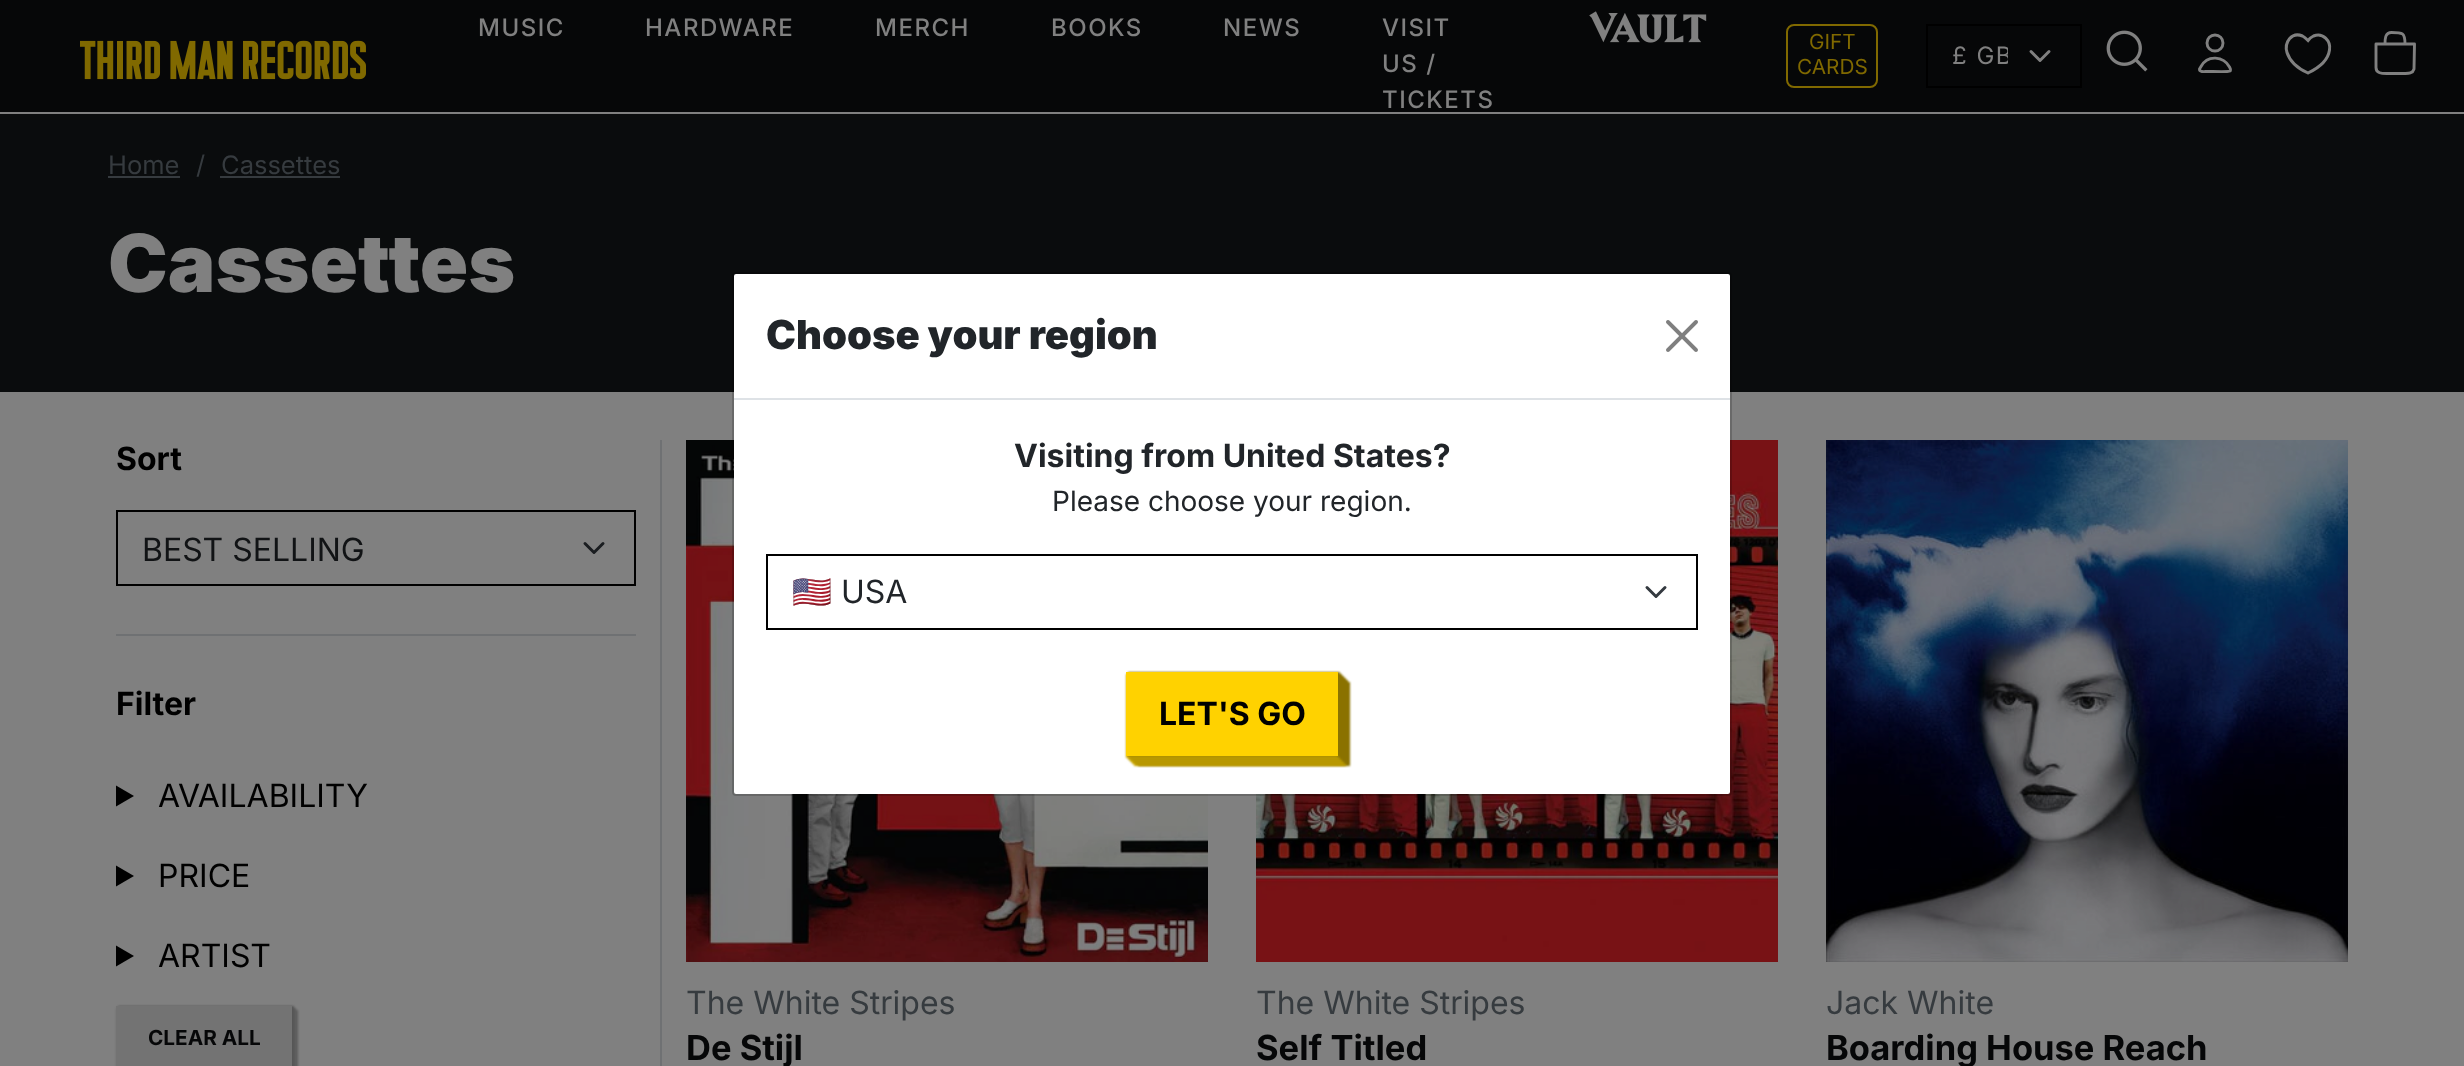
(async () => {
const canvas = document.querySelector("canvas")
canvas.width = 2464
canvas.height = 1066
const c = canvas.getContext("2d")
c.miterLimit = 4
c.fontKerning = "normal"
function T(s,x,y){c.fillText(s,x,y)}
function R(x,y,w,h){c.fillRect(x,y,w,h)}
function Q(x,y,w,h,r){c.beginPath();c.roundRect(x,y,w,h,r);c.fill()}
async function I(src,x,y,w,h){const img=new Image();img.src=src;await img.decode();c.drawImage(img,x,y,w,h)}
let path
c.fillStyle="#808080"
R(0,0,2464,1066)
c.fillStyle="#060708"
R(0,0,2464,112)
await I("1.png",80,40,286,40)
c.letterSpacing="1.5px"
c.font="500 24px Inter"
c.fillStyle="#808080"
T("MUSIC",478,36)
T("HARDWARE",645,36)
T("MERCH",875,36)
T("BOOKS",1051,36)
T("NEWS",1223,36)
T("VISIT",1382,36)
T("US /",1382,72)
T("TICKETS",1382,108)
await I("2.png",1589,11,118,32)
c.beginPath()
c.roundRect(1787,25,90,62,7)
c.strokeStyle="#806900"
c.lineWidth=2
c.stroke()
c.letterSpacing="0px"
c.font="20.75px Inter"
c.fillStyle="#806900"
T("GIFT",1809,49)
T("CARDS",1797,74)
path = new Path2D("M2031 51.5l9 9l9-9")
c.strokeStyle="#808080"
c.lineWidth=3
c.lineCap="round"
c.lineJoin="round"
c.stroke(path)
c.strokeStyle="#000"
c.lineWidth=2
c.lineJoin="miter"
c.strokeRect(1927,25,154,62)
c.save()
c.beginPath()
c.rect(1952,38,56,36)
c.clip()
c.letterSpacing="1.5px"
c.font="24px Inter"
c.fillStyle="#808080"
T("£ GB",1952,64)
c.restore()
await I("3.png",2106,30,42,42)
c.beginPath()
c.arc(2215,43,8,0,7)
c.strokeStyle="#808080"
c.lineWidth=2.9
c.stroke()
path = new Path2D("M2201 66.5l-1.5 2.5c-.5 3.5 6 2.5 6.5 2.5h4.5c2.5 0 18 .5 19.5-.5l.5-.5c.5-1-.5-2.5-1-3.5c-6-11-22-12.5-28.5-.5")
c.lineJoin="round"
c.stroke(path)
path = new Path2D("M2308 73c-9-4-18-11-21-20.5c-3-10 4.5-21 15.5-16.5c2 1 3.5 2.5 5.5 4.5c1.5-2 3.5-3.5 5.5-4.5c9.5-4 17.5 5 16 14c-1.5 11-12 18.5-21.5 23z")
c.lineWidth=3
c.lineCap="butt"
c.lineJoin="miter"
c.stroke(path)
path = new Path2D("M2376 44h38.5l-.5 25c-1.5 5-6 4.5-10 4.5h-17.5c-4.5 0-10.5 0-10.5-6zm15.5-11.5c11 0 13.5 0 13.5 11.5h-20c0-5 0-11.5 6.5-11.5")
c.lineWidth=2.9
c.lineCap="round"
c.lineJoin="round"
c.stroke(path)
c.fillStyle="#0a0c0d"
R(0,114,2464,278)
c.font="25.5px Inter"
c.fillStyle="#363b3f"
T("Home",108,174)
R(108,176,72,2)
T("/",196,174)
T("Cassettes",221,174)
R(220,176,120,2)
c.font="900 80px Inter"
c.fillStyle="#808080"
T("Cassettes",108,292)
c.fillStyle="#6f7173"
R(660,440,2,626)
R(116,634,520,2)
c.font="bold 32px Inter"
c.fillStyle="#000"
T("Sort",116,470)
path = new Path2D("M585 543.5l9 9l9-9")
c.strokeStyle="#1a1d20"
c.lineWidth=3
c.stroke(path)
c.strokeStyle="#000"
c.lineWidth=2
c.lineJoin="miter"
c.strokeRect(117,511,518,74)
c.font="32px Inter"
c.fillStyle="#111315"
T("BEST SELLING",142,561)
c.font="bold 32px Inter"
c.fillStyle="#000"
T("Filter",116,715)
path = new Path2D("M116 785.5l18 10.5l-18 10.5z")
c.fill(path)
c.font="32px Inter"
T("AVAILABILITY",158,807)
path = new Path2D("M116 865.5l18 10.5l-18 10.5z")
c.fill(path)
T("PRICE",158,887)
path = new Path2D("M116 945.5l18 10.5l-18 10.5z")
c.fill(path)
T("ARTIST",158,967)
c.fillStyle="#5e5e5e"
c.filter="blur(1px)"
c.beginPath()
c.rect(122,1010,176,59)
c.fill()
c.filter="none"
c.fillStyle="#777"
c.filter="blur(1px)"
c.beginPath()
c.rect(118,1010,176,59)
c.fill()
c.filter="none"
c.fillStyle="#5e5e5e"
c.filter="blur(1px)"
c.beginPath()
c.rect(120,1008,176,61)
c.fill()
c.filter="none"
c.fillStyle="#6f6f6f"
c.filter="blur(1px)"
c.beginPath()
c.rect(116,1008,176,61)
c.fill()
c.filter="none"
c.fillStyle="#555"
c.filter="blur(1px)"
c.beginPath()
c.rect(118,1006,176,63)
c.fill()
c.filter="none"
c.fillStyle="#737373"
R(116,1006,176,60)
c.font="bold 20.75px Inter"
c.fillStyle="#060708"
T("CLEAR ALL",148,1045)
await I("4.png",686,440,522,522)
c.font="32px Inter"
c.fillStyle="#363b3f"
T("The White Stripes",686,1014)
c.font="bold 34.5px Inter"
c.fillStyle="#060708"
T("De Stijl",686,1060)
await I("5.png",1256,440,522,522)
c.font="32px Inter"
c.fillStyle="#363b3f"
T("The White Stripes",1256,1014)
c.font="bold 34.5px Inter"
c.fillStyle="#060708"
T("Self Titled",1256,1060)
await I("6.png",1826,440,522,522)
c.font="32px Inter"
c.fillStyle="#363b3f"
T("Jack White",1826,1014)
c.font="bold 34.5px Inter"
c.fillStyle="#060708"
T("Boarding House Reach",1826,1060)
c.fillStyle="#fff"
Q(734,274,996,520,2)
c.beginPath()
c.roundRect(733,273,998,522,3)
c.strokeStyle="#0000002e"
c.stroke()
c.fillStyle="#dee2e6"
R(734,398,996,2)
c.font="900 40px Inter"
c.fillStyle="#212529"
T("Choose your region",766,349)
await I("7.png",1666,320,32,32)
c.font="bold 32px Inter"
T("Visiting from United States?",1014,467)
c.font="28px Inter"
T("Please choose your region.",1052,511)
path = new Path2D("M1647 587.5l9 9l9-9")
c.strokeStyle="#343a40"
c.lineWidth=3
c.lineJoin="round"
c.stroke(path)
c.strokeStyle="#000"
c.lineWidth=2
c.lineJoin="miter"
c.strokeRect(767,555,930,74)
c.font="32px Noto Color Emoji"
T("🇺🇸",792,603)
c.font="32px Inter"
T("USA",841,603)
c.fillStyle="#8a7100"
c.filter="blur(1px)"
c.beginPath()
c.rect(1138,682,212,84)
c.fill()
c.filter="none"
c.fillStyle="#c9a600"
c.filter="blur(1px)"
c.beginPath()
c.rect(1134,682,212,84)
c.fill()
c.filter="none"
c.fillStyle="#8a7100"
c.filter="blur(1px)"
c.beginPath()
c.rect(1136,680,212,84)
c.fill()
c.filter="none"
c.fillStyle="#c9a600"
c.filter="blur(1px)"
c.beginPath()
c.rect(1132,680,212,84)
c.fill()
c.filter="none"
c.fillStyle="#8a7100"
c.filter="blur(1px)"
c.beginPath()
c.rect(1134,678,212,84)
c.fill()
c.filter="none"
c.fillStyle="#c9a600"
c.filter="blur(1px)"
c.beginPath()
c.rect(1130,678,212,84)
c.fill()
c.filter="none"
c.fillStyle="#8a7100"
c.filter="blur(1px)"
c.beginPath()
c.rect(1132,676,212,84)
c.fill()
c.filter="none"
c.fillStyle="#c9a600"
c.filter="blur(1px)"
c.beginPath()
c.rect(1128,676,212,84)
c.fill()
c.filter="none"
c.fillStyle="#8a7100"
c.filter="blur(1px)"
c.beginPath()
c.rect(1130,674,212,84)
c.fill()
c.filter="none"
c.fillStyle="#c9a600"
c.filter="blur(1px)"
c.beginPath()
c.rect(1126,674,212,84)
c.fill()
c.filter="none"
c.fillStyle="#8a7100"
c.filter="blur(1px)"
c.beginPath()
c.rect(1128,672,212,84)
c.fill()
c.filter="none"
c.fillStyle="#ffd200"
R(1126,672,212,84)
c.font="bold 32px Inter"
c.fillStyle="#000"
T("LET'S GO",1159,725)
})()
